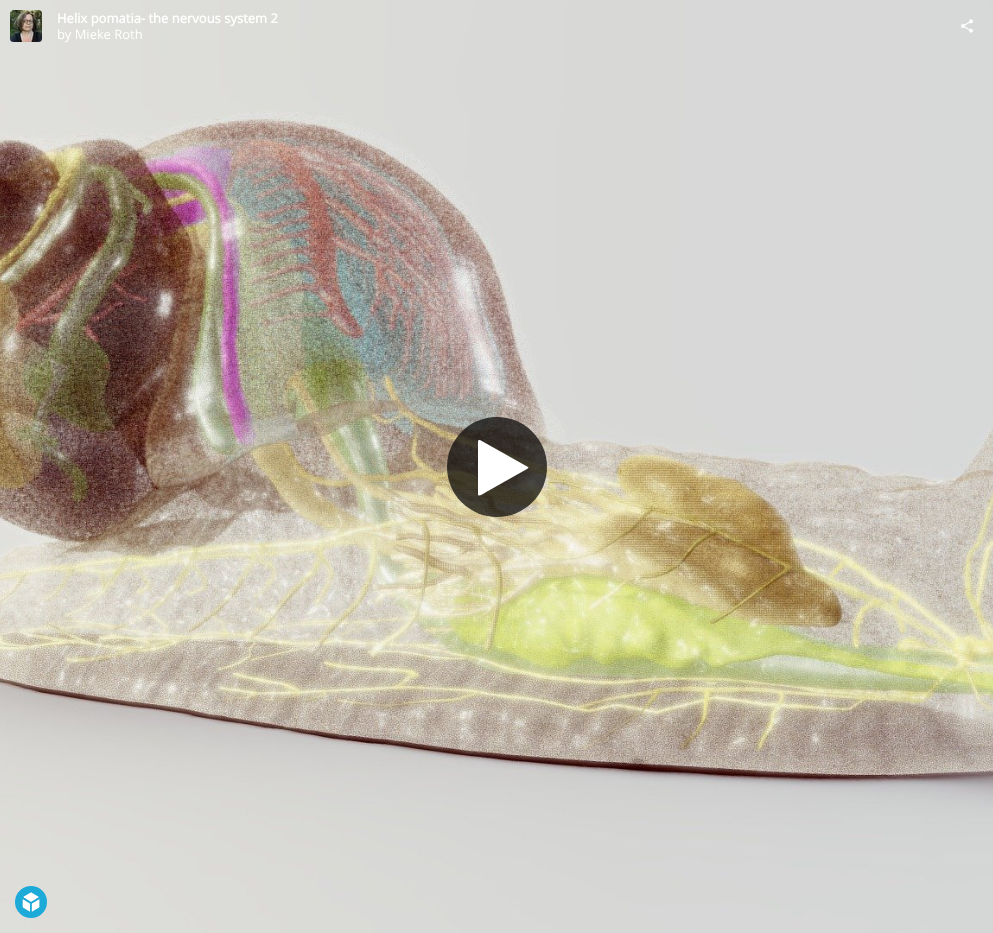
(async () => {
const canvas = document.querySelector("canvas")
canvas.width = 993
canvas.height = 933
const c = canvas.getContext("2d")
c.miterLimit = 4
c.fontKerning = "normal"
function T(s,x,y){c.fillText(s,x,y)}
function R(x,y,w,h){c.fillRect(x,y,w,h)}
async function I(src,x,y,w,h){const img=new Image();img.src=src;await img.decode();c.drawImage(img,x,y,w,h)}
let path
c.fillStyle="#fff"
R(0,0,993,933)
await I("1.png",0,0,993,933)
c.fillStyle="#000000b3"
c.beginPath()
c.arc(497,467,50,0,7)
c.fill()
c.fillStyle="#fff"
path = new Path2D("M527 469l-39 22c-1 0-8 6-10 4v-54c0-1 1-1 2-1l48 27c1 1 0 1-1 2z")
c.fill(path)
await I("2.png",15,886,32,32)
await I("3.png",10,10,32,32)
c.font="bold 13px Open Sans"
T("Helix pomatia- the nervous system 2",57,23)
c.font="13px Open Sans"
T("by Mieke Roth",57,39)
await I("4.png",961,19,12,14)
})()
